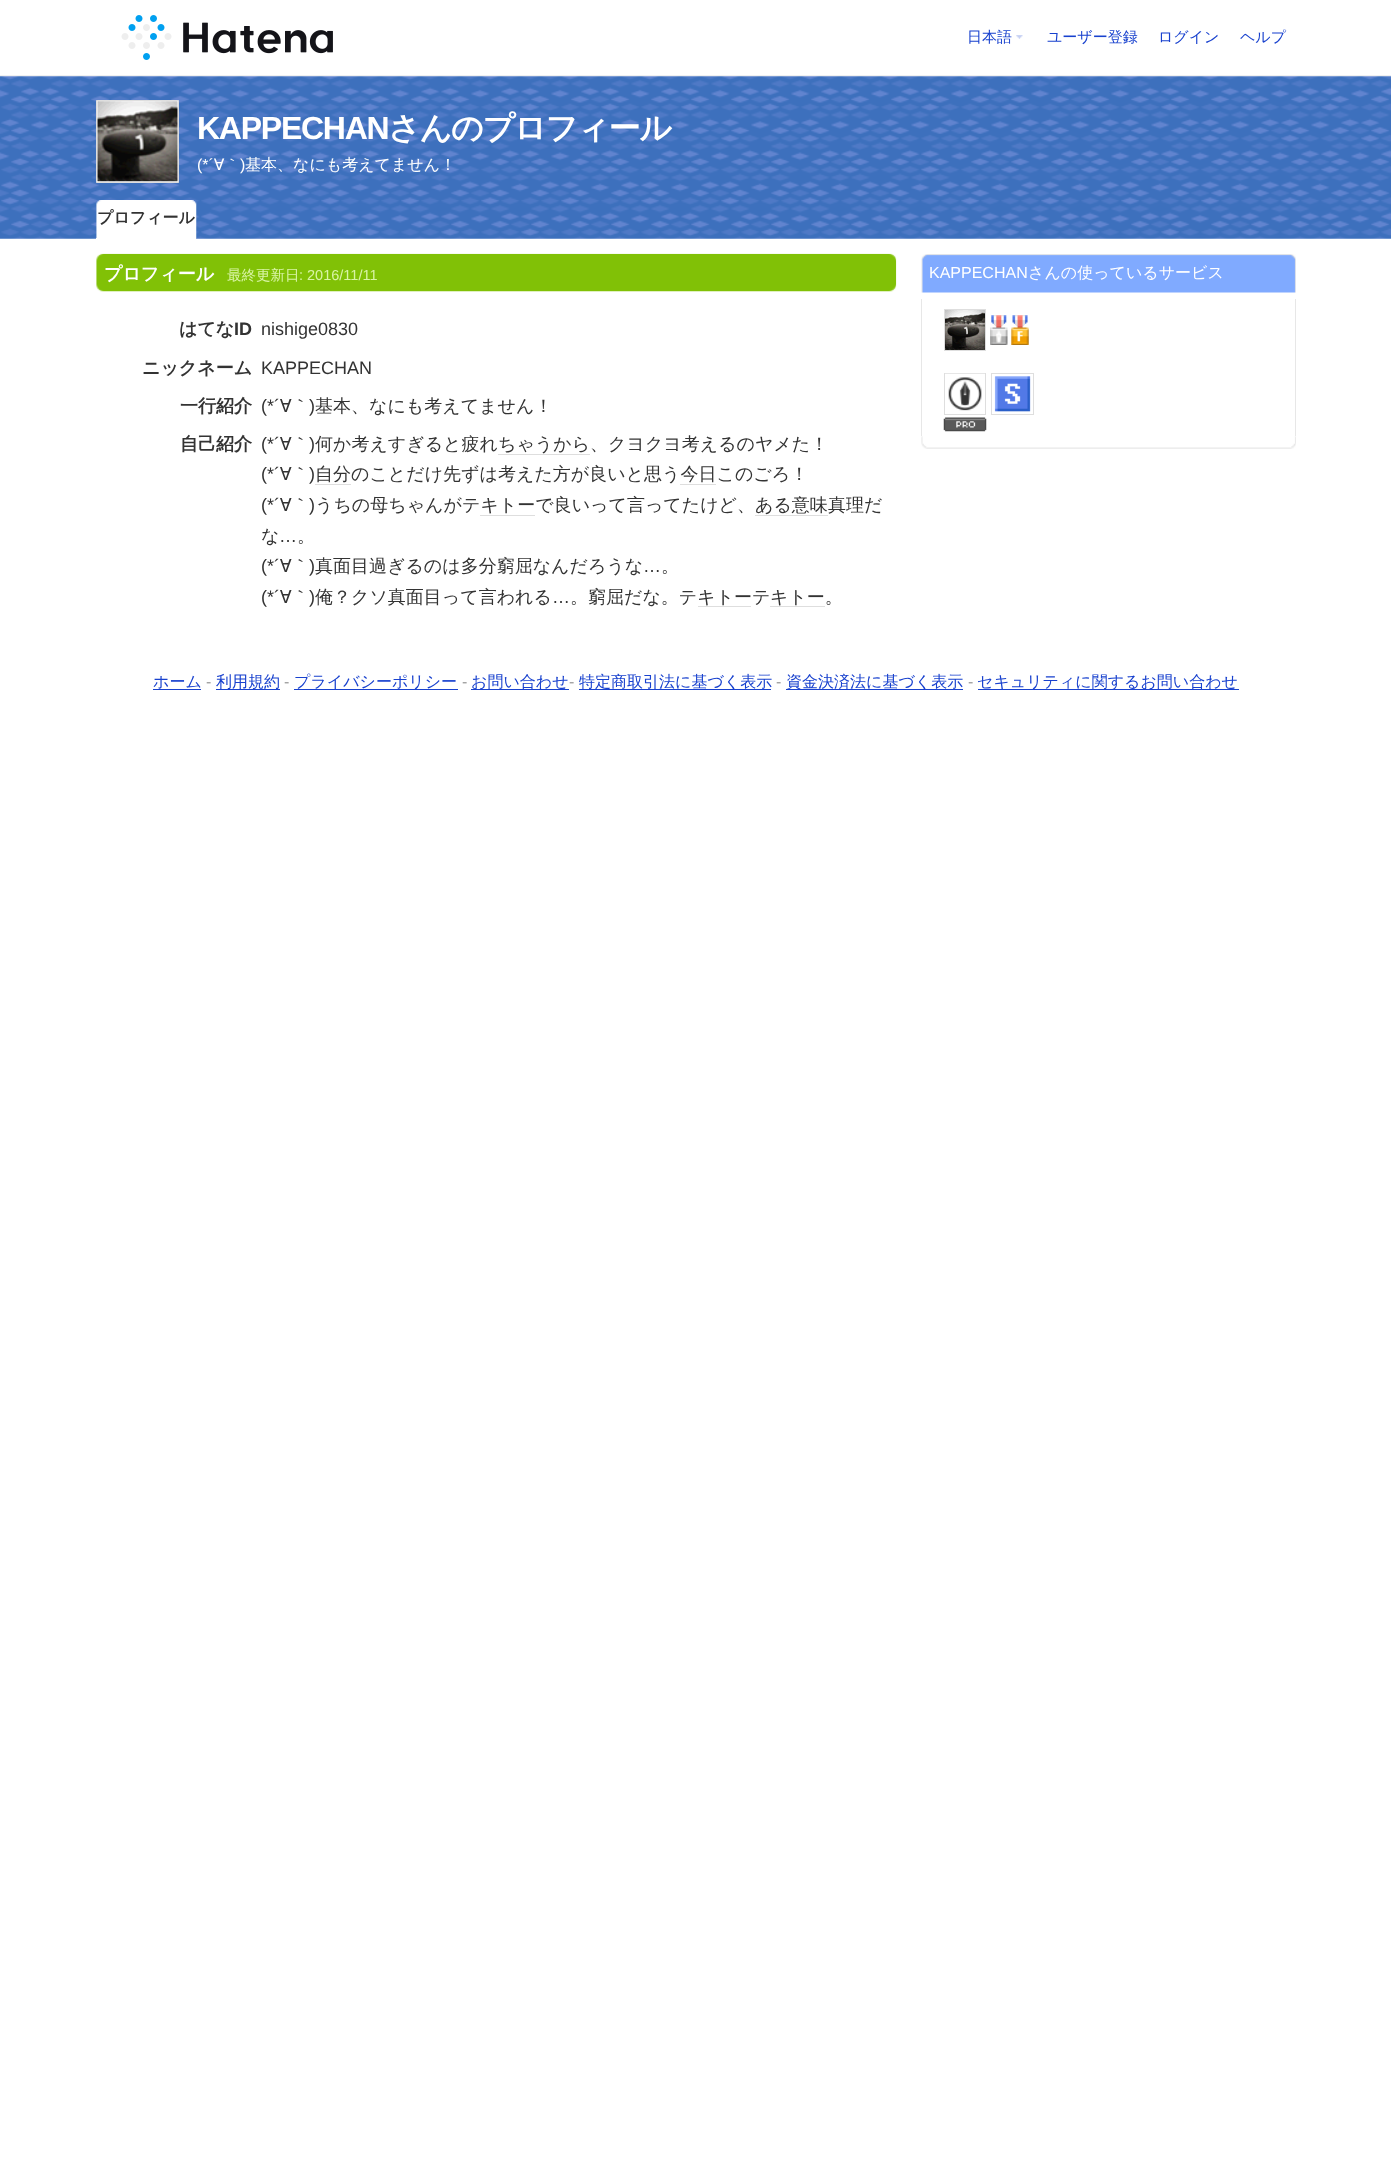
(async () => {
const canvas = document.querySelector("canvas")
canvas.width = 1391
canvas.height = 2167
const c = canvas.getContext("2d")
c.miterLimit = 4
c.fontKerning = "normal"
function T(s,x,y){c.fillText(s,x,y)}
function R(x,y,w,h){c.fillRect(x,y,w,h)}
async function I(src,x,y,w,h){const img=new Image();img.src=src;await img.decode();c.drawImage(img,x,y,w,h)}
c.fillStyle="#fff"
R(0,0,1391,2167)
c.fillStyle="#f0f0f0"
R(0,75,1391,1)
await I("1.png",121,15,212,45)
await I("2.png",1016,35,7,4)
c.font="500 15px WenQuanYi Zen Hei"
c.fillStyle="#1841ce"
T("日本語",967,42)
T("ユーザー登録",1047,42)
T("ログイン",1158,42)
T("ヘルプ",1240,42)
await I("3.png",0,76,1391,163)
c.fillStyle="#fff"
c.beginPath()
c.rect(96.5,100.5,82,82)
c.fill()
c.strokeStyle="#dedede"
c.stroke()
await I("4.png",97,101,81,81)
c.letterSpacing="-1.25px"
c.font="bold 32px Liberation Sans"
T("KAPPECHAN",197,139)
c.font="bold 32px WenQuanYi Zen Hei"
T("さんのプロフィール",388,139)
c.letterSpacing="0px"
c.font="16px Liberation Sans"
T("(*´",197,170)
c.font="500 16px WenQuanYi Zen Hei"
T("∀｀",214,170)
c.font="16px Liberation Sans"
T(")",240,170)
c.font="500 16px WenQuanYi Zen Hei"
T("基本、なにも考えてません！",245,170)
await I("5.png",96,200,101,39)
R(96,238,100,1)
c.font="bold 16px WenQuanYi Zen Hei"
c.fillStyle="#333"
T("プロフィール",97,223)
await I("6.png",96,253,801,39)
c.font="bold 18px WenQuanYi Zen Hei"
c.fillStyle="#fff"
T("プロフィール",104,280)
c.font="500 14.5px WenQuanYi Zen Hei"
c.fillStyle="#d9f4a6"
T("最終更新日",227,280)
c.font="14.5px Liberation Sans"
T(": 2016/11/11",299,280)
c.font="bold 18px WenQuanYi Zen Hei"
c.fillStyle="#333"
T("はてな",179,335)
c.font="bold 18px Liberation Sans"
T("ID",234,335)
c.font="18px Liberation Sans"
T("nishige0830",261,335)
c.font="bold 18px WenQuanYi Zen Hei"
T("ニックネーム",142,374)
c.font="18px Liberation Sans"
T("KAPPECHAN",261,374)
c.font="bold 18px WenQuanYi Zen Hei"
T("一行紹介",180,412)
c.font="18px Liberation Sans"
T("(*´",261,412)
c.font="500 18px WenQuanYi Zen Hei"
T("∀｀",280,412)
c.font="18px Liberation Sans"
T(")",309,412)
c.font="500 18px WenQuanYi Zen Hei"
T("基本、なにも考えてません！",315,412)
c.font="bold 18px WenQuanYi Zen Hei"
T("自己紹介",180,450)
c.font="18px Liberation Sans"
T("(*´",261,450)
c.font="500 18px WenQuanYi Zen Hei"
T("∀｀",280,450)
c.font="18px Liberation Sans"
T(")",309,450)
c.font="500 18px WenQuanYi Zen Hei"
T("何か考えすぎると疲れちゃうから、クヨクヨ考えるのヤメた！",315,450)
c.fillStyle="#dedede"
R(498,454,92,1)
c.font="18px Liberation Sans"
c.fillStyle="#333"
T("(*´",261,480)
c.font="500 18px WenQuanYi Zen Hei"
T("∀｀",280,480)
c.font="18px Liberation Sans"
T(")",309,480)
c.font="500 18px WenQuanYi Zen Hei"
T("自分のことだけ先ずは考えた方が良いと思う今日このごろ！",315,480)
c.fillStyle="#dedede"
R(315,484,36,1)
R(680,484,36,1)
c.font="18px Liberation Sans"
c.fillStyle="#333"
T("(*´",261,511)
c.font="500 18px WenQuanYi Zen Hei"
T("∀｀",280,511)
c.font="18px Liberation Sans"
T(")",309,511)
c.font="500 18px WenQuanYi Zen Hei"
T("うちの母ちゃんがテキトーで良いって言ってたけど、ある意味",315,511)
T("真理だ",828,511)
c.fillStyle="#dedede"
R(480,515,55,1)
R(755,515,73,1)
c.fillStyle="#333"
T("な",261,542)
c.font="18px Liberation Sans"
T("…",279,542)
c.font="500 18px WenQuanYi Zen Hei"
T("。",297,542)
c.font="18px Liberation Sans"
T("(*´",261,572)
c.font="500 18px WenQuanYi Zen Hei"
T("∀｀",280,572)
c.font="18px Liberation Sans"
T(")",309,572)
c.font="500 18px WenQuanYi Zen Hei"
T("真面目過ぎるのは多分窮屈なんだろうな",315,572)
c.font="18px Liberation Sans"
T("…",643,572)
c.font="500 18px WenQuanYi Zen Hei"
T("。",661,572)
c.font="18px Liberation Sans"
T("(*´",261,603)
c.font="500 18px WenQuanYi Zen Hei"
T("∀｀",280,603)
c.font="18px Liberation Sans"
T(")",309,603)
c.font="500 18px WenQuanYi Zen Hei"
T("俺？クソ真面目って言われる",315,603)
c.font="18px Liberation Sans"
T("…",552,603)
c.font="500 18px WenQuanYi Zen Hei"
T("。窮屈だな。テキトーテ",570,603)
T("キトー。",770,603)
c.fillStyle="#dedede"
R(770,606,55,1)
R(698,606,53,1)
await I("7.png",921,436,375,13)
await I("8.png",921,254,375,39)
c.font="16px Liberation Sans"
c.fillStyle="#fff"
T("KAPPECHAN",929,278)
c.font="500 16px WenQuanYi Zen Hei"
T("さんの使っているサービス",1028,278)
c.fillStyle="#e7e7e7"
R(1295,299,1,137)
R(921,299,1,137)
c.strokeRect(944.5,309.5,41,41)
await I("9.png",945,310,40,40)
await I("10.png",990,315,18,30)
await I("11.png",1011,315,18,30)
c.strokeRect(944.5,373.5,41,41)
await I("12.png",945,373,40,38)
await I("13.png",943,417,44,15)
c.strokeRect(991.5,373.5,42,41)
await I("14.png",994,376,37,36)
c.fillStyle="#1841ce"
T("ホーム",153,687)
R(153,689,48,1)
c.font="16px Liberation Sans"
c.fillStyle="#999"
T("-",206,687)
c.fillStyle="#1841ce"
R(216,689,64,1)
c.font="500 16px WenQuanYi Zen Hei"
T("利用規約",216,687)
c.font="16px Liberation Sans"
c.fillStyle="#999"
T("-",284,687)
c.fillStyle="#1841ce"
R(294,689,164,1)
c.font="500 16px WenQuanYi Zen Hei"
T("プライバシーポリシー",294,687)
c.font="16px Liberation Sans"
c.fillStyle="#999"
T("-",462,687)
c.fillStyle="#1841ce"
R(471,689,98,1)
c.font="500 16px WenQuanYi Zen Hei"
T("お問い合わせ",471,687)
c.font="16px Liberation Sans"
c.fillStyle="#999"
T("-",569,687)
c.fillStyle="#1841ce"
R(579,689,192,1)
c.font="500 16px WenQuanYi Zen Hei"
T("特定商取引法に基づく表示",579,687)
c.font="16px Liberation Sans"
c.fillStyle="#999"
T("-",776,687)
c.fillStyle="#1841ce"
R(786,689,177,1)
c.font="500 16px WenQuanYi Zen Hei"
T("資金決済法に基づく表示",786,687)
c.font="16px Liberation Sans"
c.fillStyle="#999"
T("-",968,687)
c.fillStyle="#1841ce"
R(978,689,261,1)
c.font="500 16px WenQuanYi Zen Hei"
T("セキュリティに関するお問い合わせ",977,687)
})()
